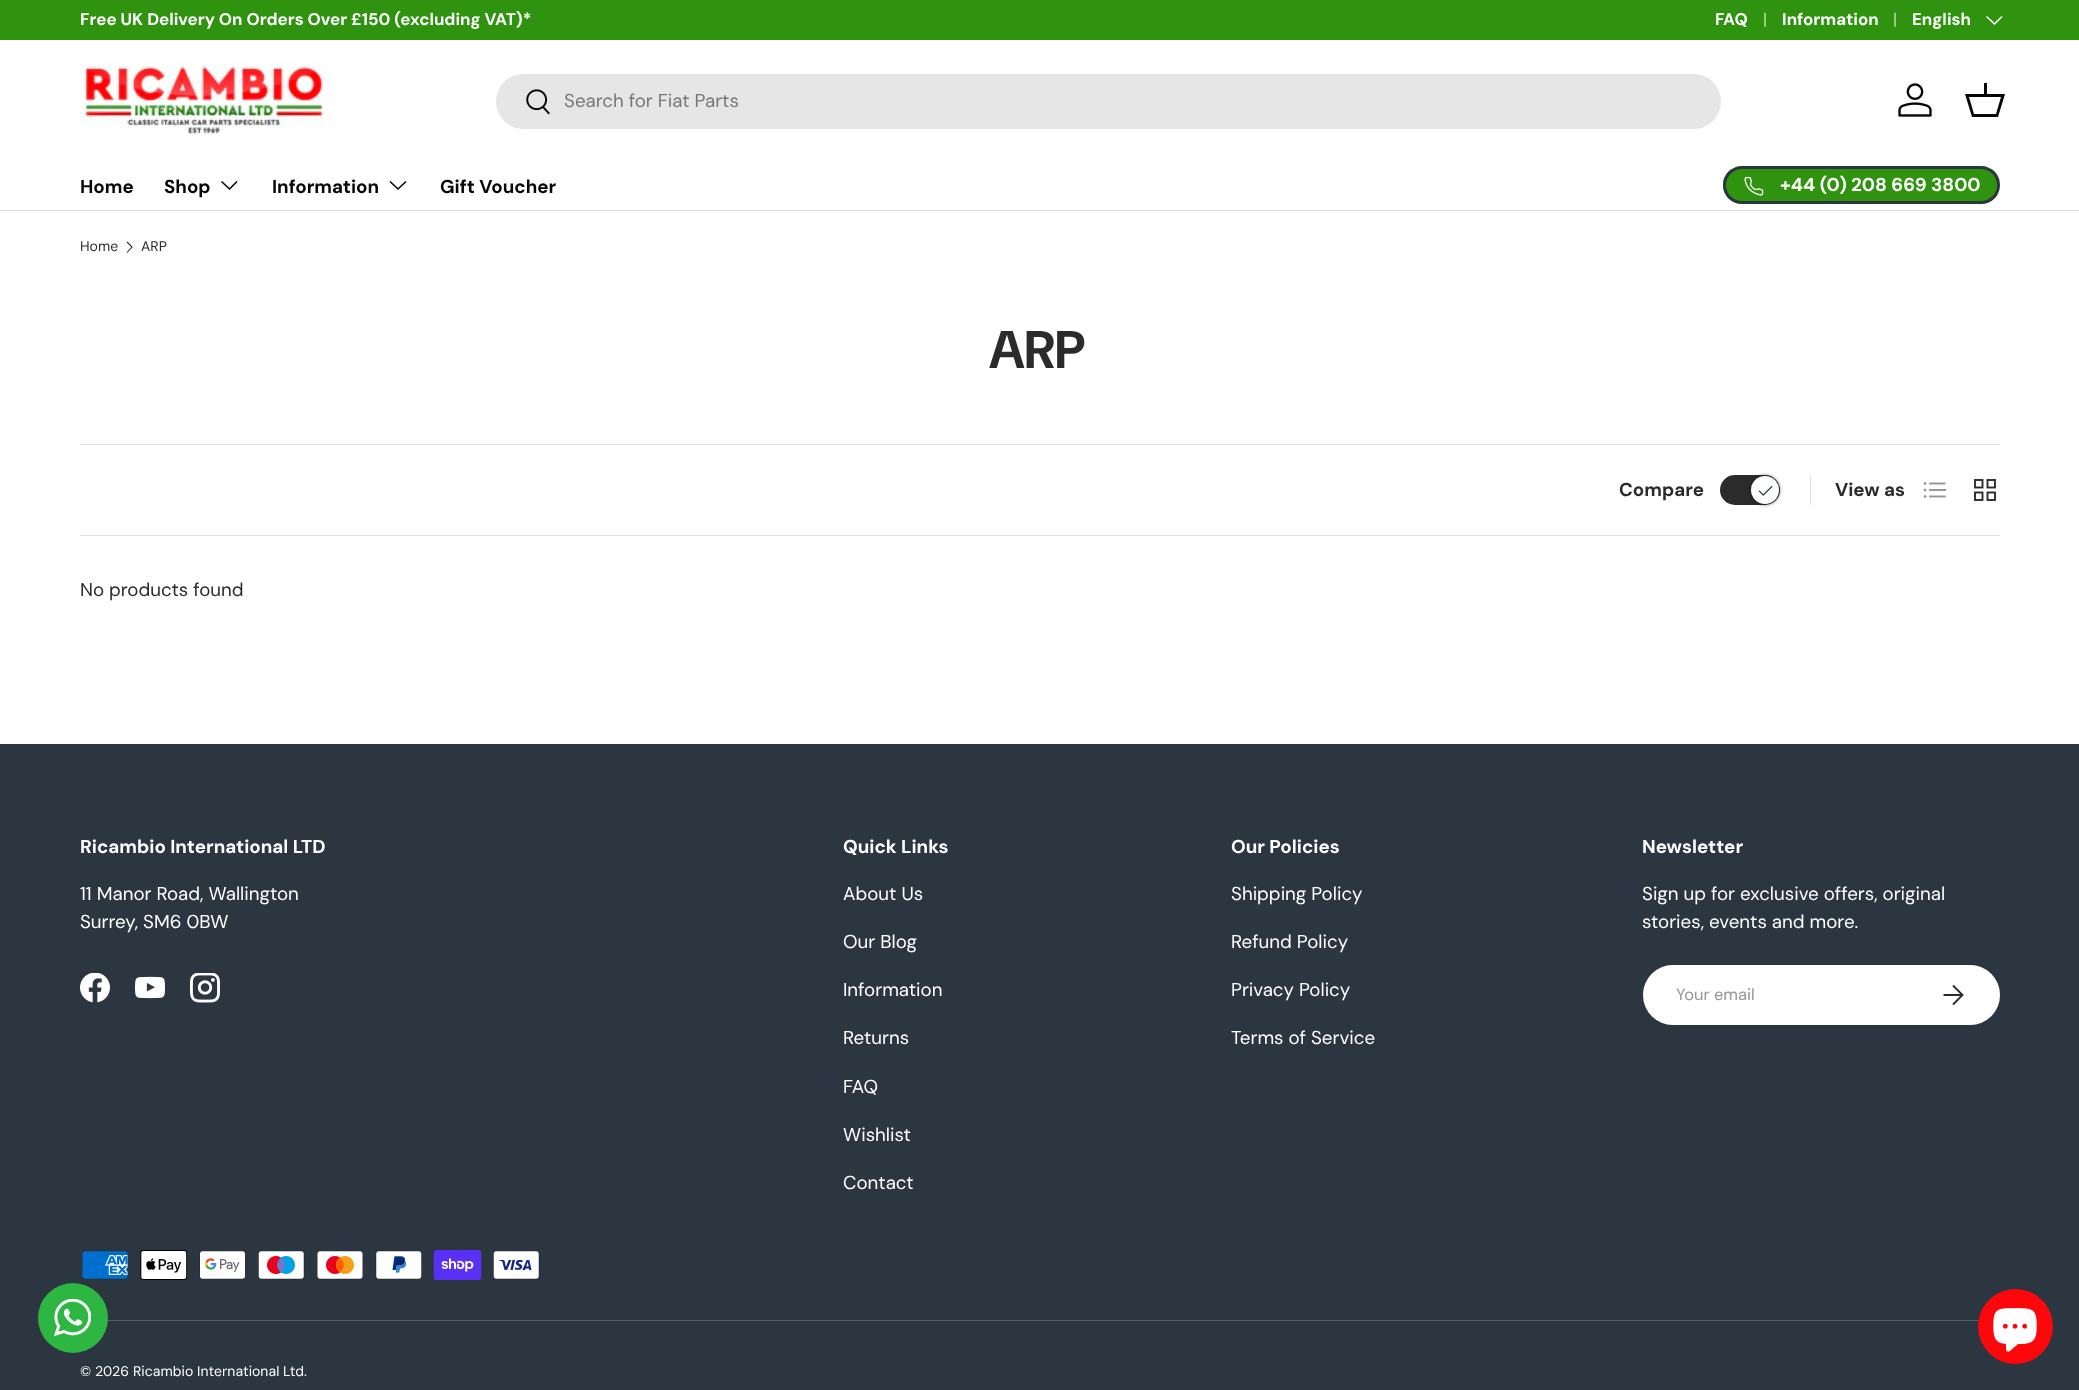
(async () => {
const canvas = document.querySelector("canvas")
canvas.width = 2079
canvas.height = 1390
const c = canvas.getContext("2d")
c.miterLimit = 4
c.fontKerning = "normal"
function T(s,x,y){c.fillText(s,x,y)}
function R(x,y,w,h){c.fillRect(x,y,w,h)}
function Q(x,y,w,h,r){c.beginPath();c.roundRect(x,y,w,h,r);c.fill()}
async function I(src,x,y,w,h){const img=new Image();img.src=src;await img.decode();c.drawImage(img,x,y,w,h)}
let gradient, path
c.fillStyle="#fff"
R(0,0,2079,1390)
c.fillStyle="#2f930f"
R(0,0,2079,40)
c.font="bold 16.9px 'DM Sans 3'"
c.fillStyle="#fff"
T("Free UK Delivery On Orders Over £150 (excluding VAT)*",80,25)
T("FAQ",1715,25)
c.font="16.9px DM Sans"
c.fillStyle="#c1dfb7"
T("|",1763,25)
c.font="bold 16.9px 'DM Sans 3'"
c.fillStyle="#fff"
T("Information",1782,25)
c.font="16.9px DM Sans"
c.fillStyle="#c1dfb7"
T("|",1893,25)
c.font="bold 16.9px 'DM Sans 3'"
c.fillStyle="#fff"
T("English",1912,25)
path = new Path2D("M2002 16.5l-7.5 7.5l-8-7.5")
c.strokeStyle="#fff"
c.lineWidth=1.6
c.stroke(path)
c.fillStyle="#dadada"
R(0,210,2079,1)
await I("1.png",80,60,250,75)
c.fillStyle="#e6e6e6"
Q(496,74,1225,55,27.5)
await I("2.png",526,89,24,26)
c.font="18.75px 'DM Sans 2'"
c.fillStyle="#777"
T("Search for Fiat Parts",564,107)
await I("3.png",1898,83,34,34)
c.fillStyle="#070707"
path = new Path2D("M1984 94v-11h3v11h18l-7 23h-26l-7-23zm-15 3l5 17h22l5-17z")
c.fill(path)
c.font="bold 18.75px 'DM Sans 2'"
T("Home",80,193)
T("Shop",164,193)
path = new Path2D("M237 181.5l-7.5 7.5l-8-7.5")
c.strokeStyle="#070707"
c.stroke(path)
T("Information",272,193)
path = new Path2D("M406 181.5l-8 7.5l-8-7.5")
c.stroke(path)
T("Gift Voucher",440,193)
c.save()
c.beginPath()
c.roundRect(1723,166,277,38,19)
c.clip()
gradient = c.createLinearGradient(1200,88,1977,282)
gradient.addColorStop(.6,"#55af38")
gradient.addColorStop(.6,"#309310")
gradient.addColorStop(1,"#309310")
c.fillStyle = gradient
R(1723,169,275,32)
c.restore()
c.beginPath()
c.roundRect(1724.5,167.5,274,35,17.5)
c.strokeStyle="#2c3640"
c.lineWidth=3
c.stroke()
await I("4.png",1744,176,20,20)
c.fillStyle="#fff"
T("+44 (0) 208 669 3800",1780,191)
c.font="14px DM Sans"
c.fillStyle="#2a2b2a"
T("Home",80,251)
path = new Path2D("M127 242l5 5l-5 5.5")
c.strokeStyle="#2a2b2a"
c.lineWidth=1.1
c.stroke(path)
T("ARP",141,251)
c.font="bold 53px DM Sans"
T("ARP",989,368)
c.fillStyle="#dfdfdf"
R(80,444,1920,1)
R(80,535,1920,1)
c.fillStyle="#2a2b2a"
Q(1720,475,60,30,15)
c.fillStyle="#00000040"
c.filter="blur(1px)"
c.beginPath()
c.roundRect(1749,474,32,32,16)
c.fill()
c.filter="none"
c.fillStyle="#fff"
c.beginPath()
c.arc(1765,490,14,0,7)
c.fill()
await I("5.png",1758,485,15,11)
c.font="bold 18.75px 'DM Sans 2'"
c.fillStyle="#2a2b2a"
T("Compare",1619,496)
c.fillStyle="#dfdfdf"
R(1810,475,1,30)
c.fillStyle="#2a2b2a"
T("View as",1835,496)
await I("6.png",1923,482,23,16)
await I("7.png",1974,479,22,22)
c.font="18.75px 'DM Sans 2'"
T("No products found",80,596)
c.fillStyle="#2c3640"
R(0,744,2079,646)
c.fillStyle="#565e66"
R(107,1320,1872,1)
c.fillStyle="#2db742"
c.beginPath()
c.arc(73,1318,35,0,7)
c.fill()
await I("8.png",54,1299,37,37)
c.font="bold 18.75px 'DM Sans 2'"
c.fillStyle="#fff"
T("Ricambio International LTD",80,853)
c.font="18.75px 'DM Sans 2'"
T("11 Manor Road, Wallington",80,900)
T("Surrey, SM6 0BW",80,928)
await I("9.png",80,973,30,30)
await I("10.png",135,976,30,23)
await I("11.png",190,973,30,30)
c.font="bold 18.75px 'DM Sans 2'"
T("Quick Links",843,853)
c.font="18.75px 'DM Sans 2'"
T("About Us",843,900)
T("Our Blog",843,948)
T("Information",843,996)
T("Returns",843,1044)
T("FAQ",843,1093)
T("Wishlist",843,1141)
T("Contact",843,1189)
c.font="bold 18.75px 'DM Sans 2'"
T("Our Policies",1231,853)
c.font="18.75px 'DM Sans 2'"
T("Shipping Policy",1231,900)
T("Refund Policy",1231,948)
T("Privacy Policy",1231,996)
T("Terms of Service",1231,1044)
c.font="bold 18.75px 'DM Sans 2'"
T("Newsletter",1642,853)
c.font="18.75px 'DM Sans 2'"
T("Sign up for exclusive offers, original",1642,900)
T("stories, events and more.",1642,928)
Q(1643,965,357,60,30)
c.beginPath()
c.roundRect(1644.5,966.5,354,57,28.5)
c.strokeStyle="#ffffff33"
c.lineWidth=3
c.stroke()
c.font="16.5px 'DM Sans 3'"
c.fillStyle="#959595"
T("Your email",1676,1000)
path = new Path2D("M1943.5 995h18m-8.5-9.5l9.5 9.5l-9.5 9.5")
c.strokeStyle="#2a2b2a"
c.lineWidth=1.9
c.stroke(path)
await I("12.png",82,1250,46,30)
await I("13.png",140,1250,48,30)
await I("14.png",199,1250,47,30)
await I("15.png",258,1250,47,30)
await I("16.png",317,1250,46,30)
await I("17.png",375,1250,47,30)
await I("18.png",433,1250,49,30)
await I("19.png",493,1250,47,30)
c.font="14px DM Sans"
c.fillStyle="#fff"
T("© 2026",80,1376)
T("Ricambio International Ltd",133,1376)
T(".",304,1376)
c.fillStyle="#fd060c"
c.beginPath()
c.arc(2015.5,1326.5,37.5,0,7)
c.fill()
await I("20.png",1993,1308,44,44)
})()
